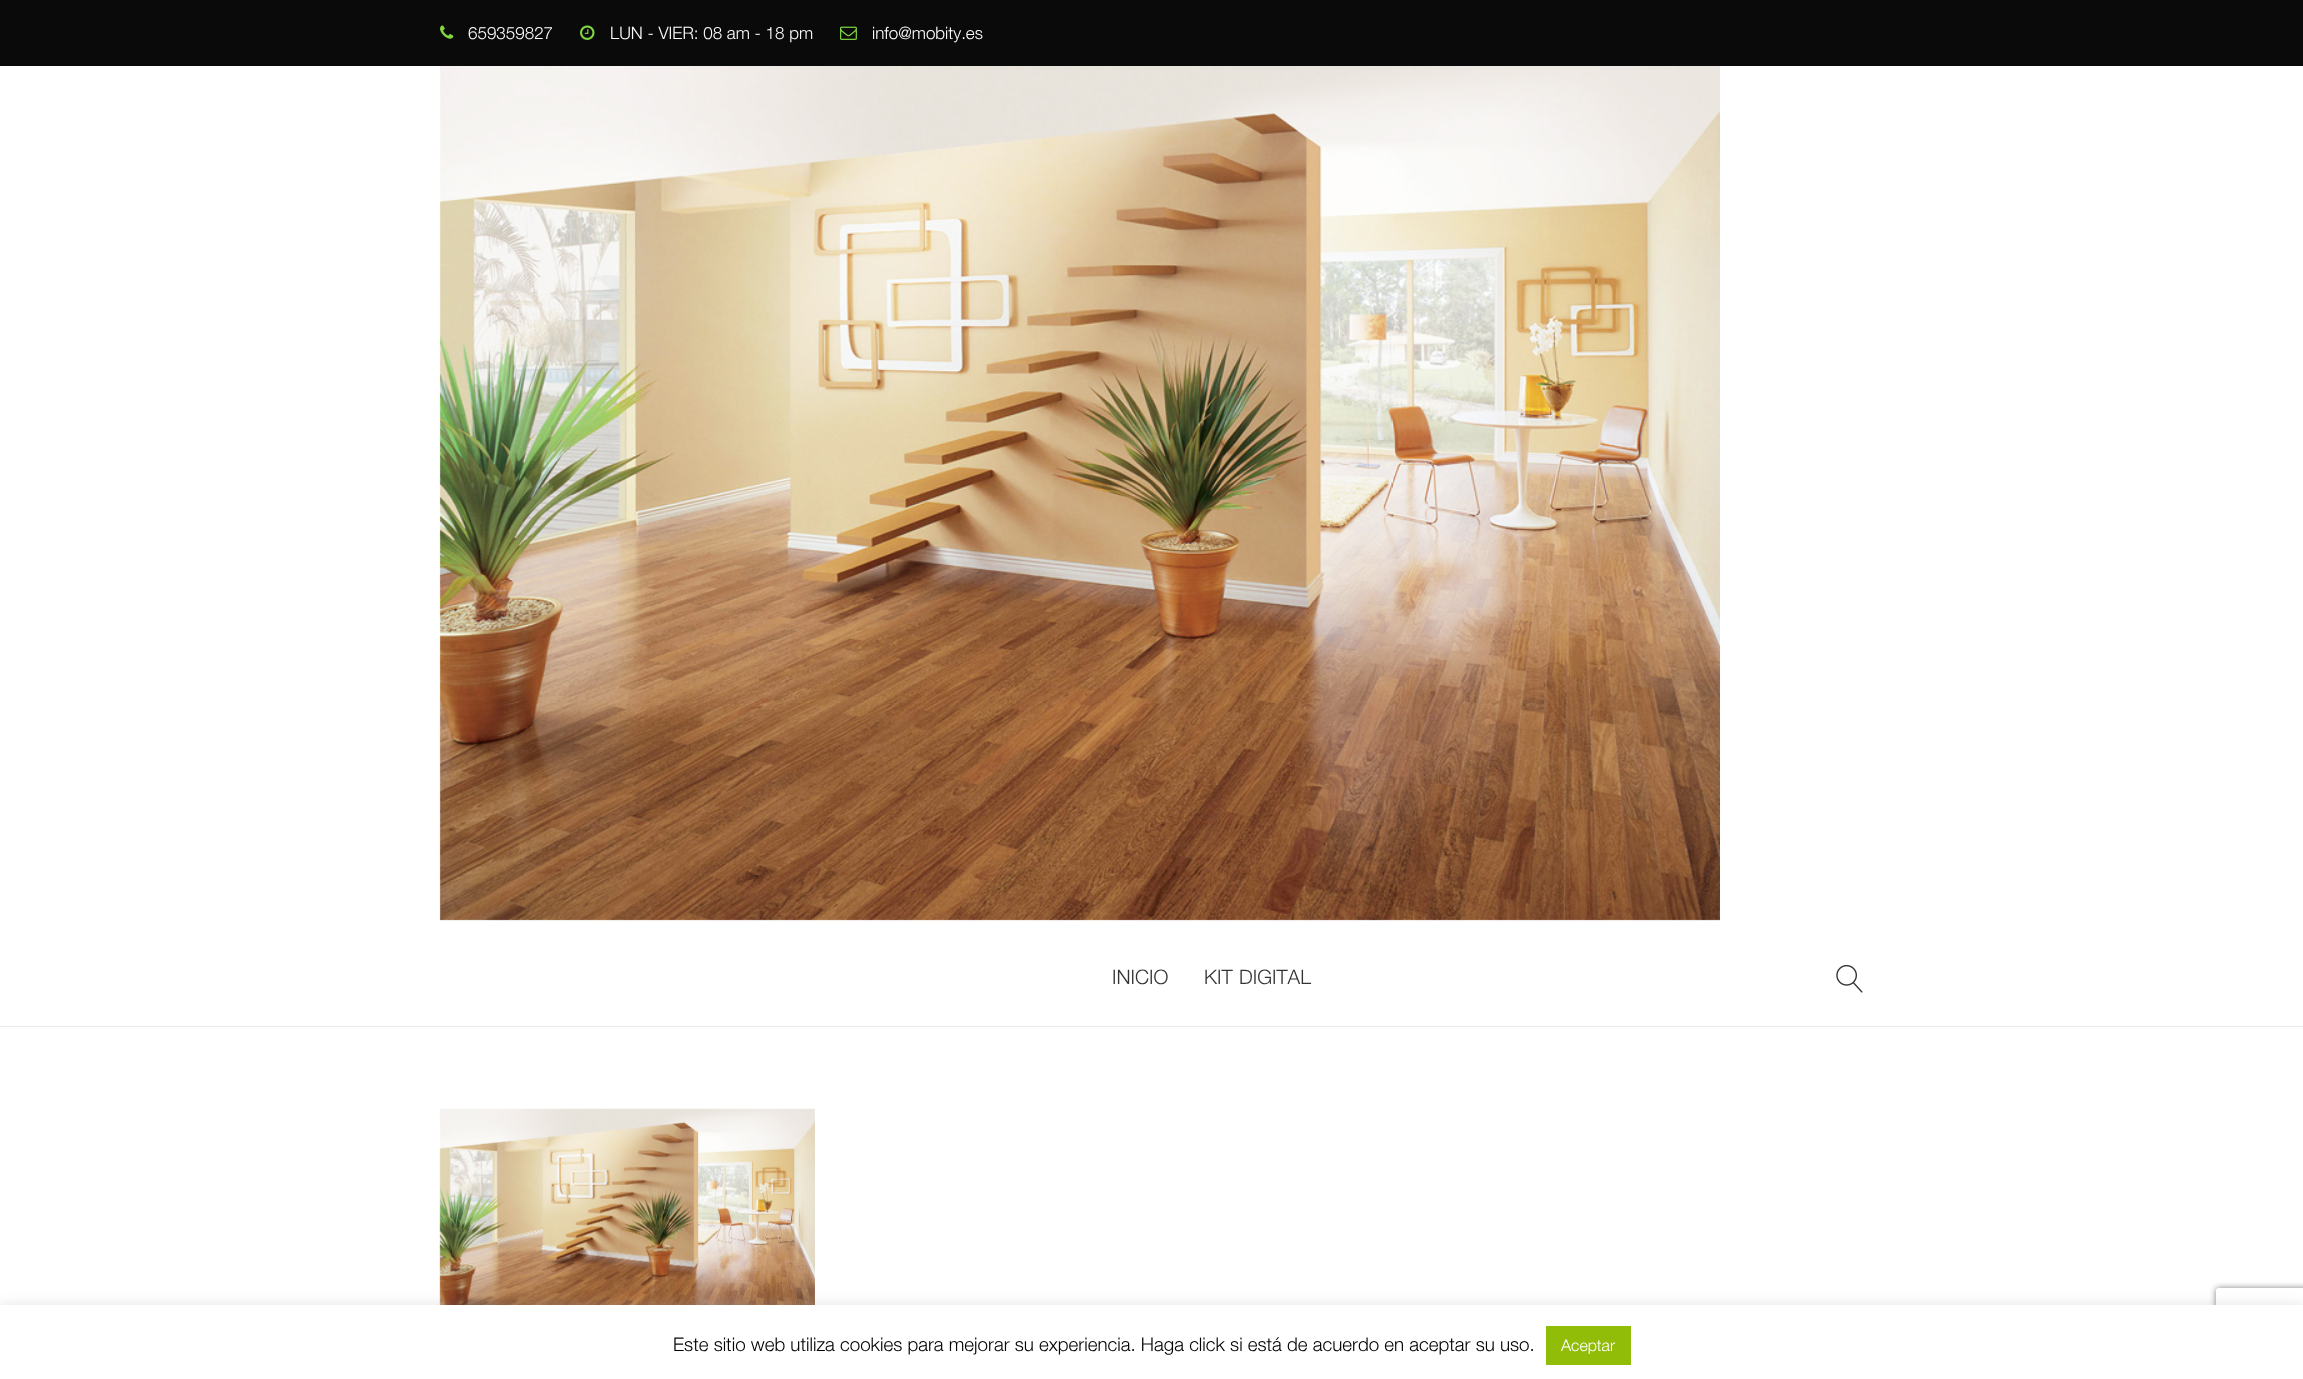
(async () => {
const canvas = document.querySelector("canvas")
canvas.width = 2303
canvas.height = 1379
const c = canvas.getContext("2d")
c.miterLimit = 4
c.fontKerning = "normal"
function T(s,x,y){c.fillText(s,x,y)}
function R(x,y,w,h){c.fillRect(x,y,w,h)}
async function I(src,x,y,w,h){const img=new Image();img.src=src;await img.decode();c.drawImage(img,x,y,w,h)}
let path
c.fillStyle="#fff"
R(0,0,2303,1379)
c.fillStyle="#0a0a0a"
R(0,0,2303,66)
await I("1.png",440,25,14,14)
c.font="300 17px Helvetica Neue"
c.fillStyle="#fff"
T("659359827",468,39)
await I("2.png",580,25,15,15)
T("LUN - VIER: 08 am - 18 pm",610,39)
await I("3.png",840,26,17,14)
T("info@mobity.es",872,39)
c.fillStyle="#ebeaea"
R(0,1026,2303,1)
await I("4.png",439,66,1281,855)
c.font="300 20px Helvetica Neue"
c.fillStyle="#333"
T("INICIO",1112,984)
c.wordSpacing="1px"
T("KIT DIGITAL",1204,984)
await I("5.png",1836,964,27,29)
await I("6.png",439,1108,376,197)
c.fillStyle="#acabab4d"
c.filter="blur(6px)"
c.beginPath()
c.rect(0,1304,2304,75)
c.fill()
c.filter="none"
c.save()
path = new Path2D("M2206 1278h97v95h-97zm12.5 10h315c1.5 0 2.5 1 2.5 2.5v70c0 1.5-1 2.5-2.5 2.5h-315c-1.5 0-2.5-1-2.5-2.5v-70c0-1.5 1-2.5 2.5-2.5z")
c.clip(path,"evenodd")
c.fillStyle="#808080"
c.filter="blur(3px)"
c.beginPath()
c.roundRect(2216,1288,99,75,2.5)
c.fill()
c.filter="none"
c.restore()
c.fillStyle="#fff"
R(0,1305,2303,74)
c.wordSpacing="0px"
c.font="300 18.75px Helvetica Neue"
c.fillStyle="#000"
T("Este sitio web utiliza cookies para mejorar su experiencia. Haga click si está de acuerdo en aceptar su uso.",673,1351)
c.fillStyle="#91bd09"
R(1546,1326,85,39)
c.font="300 16px Helvetica Neue"
c.fillStyle="#fff"
T("Aceptar",1561,1351)
})()
